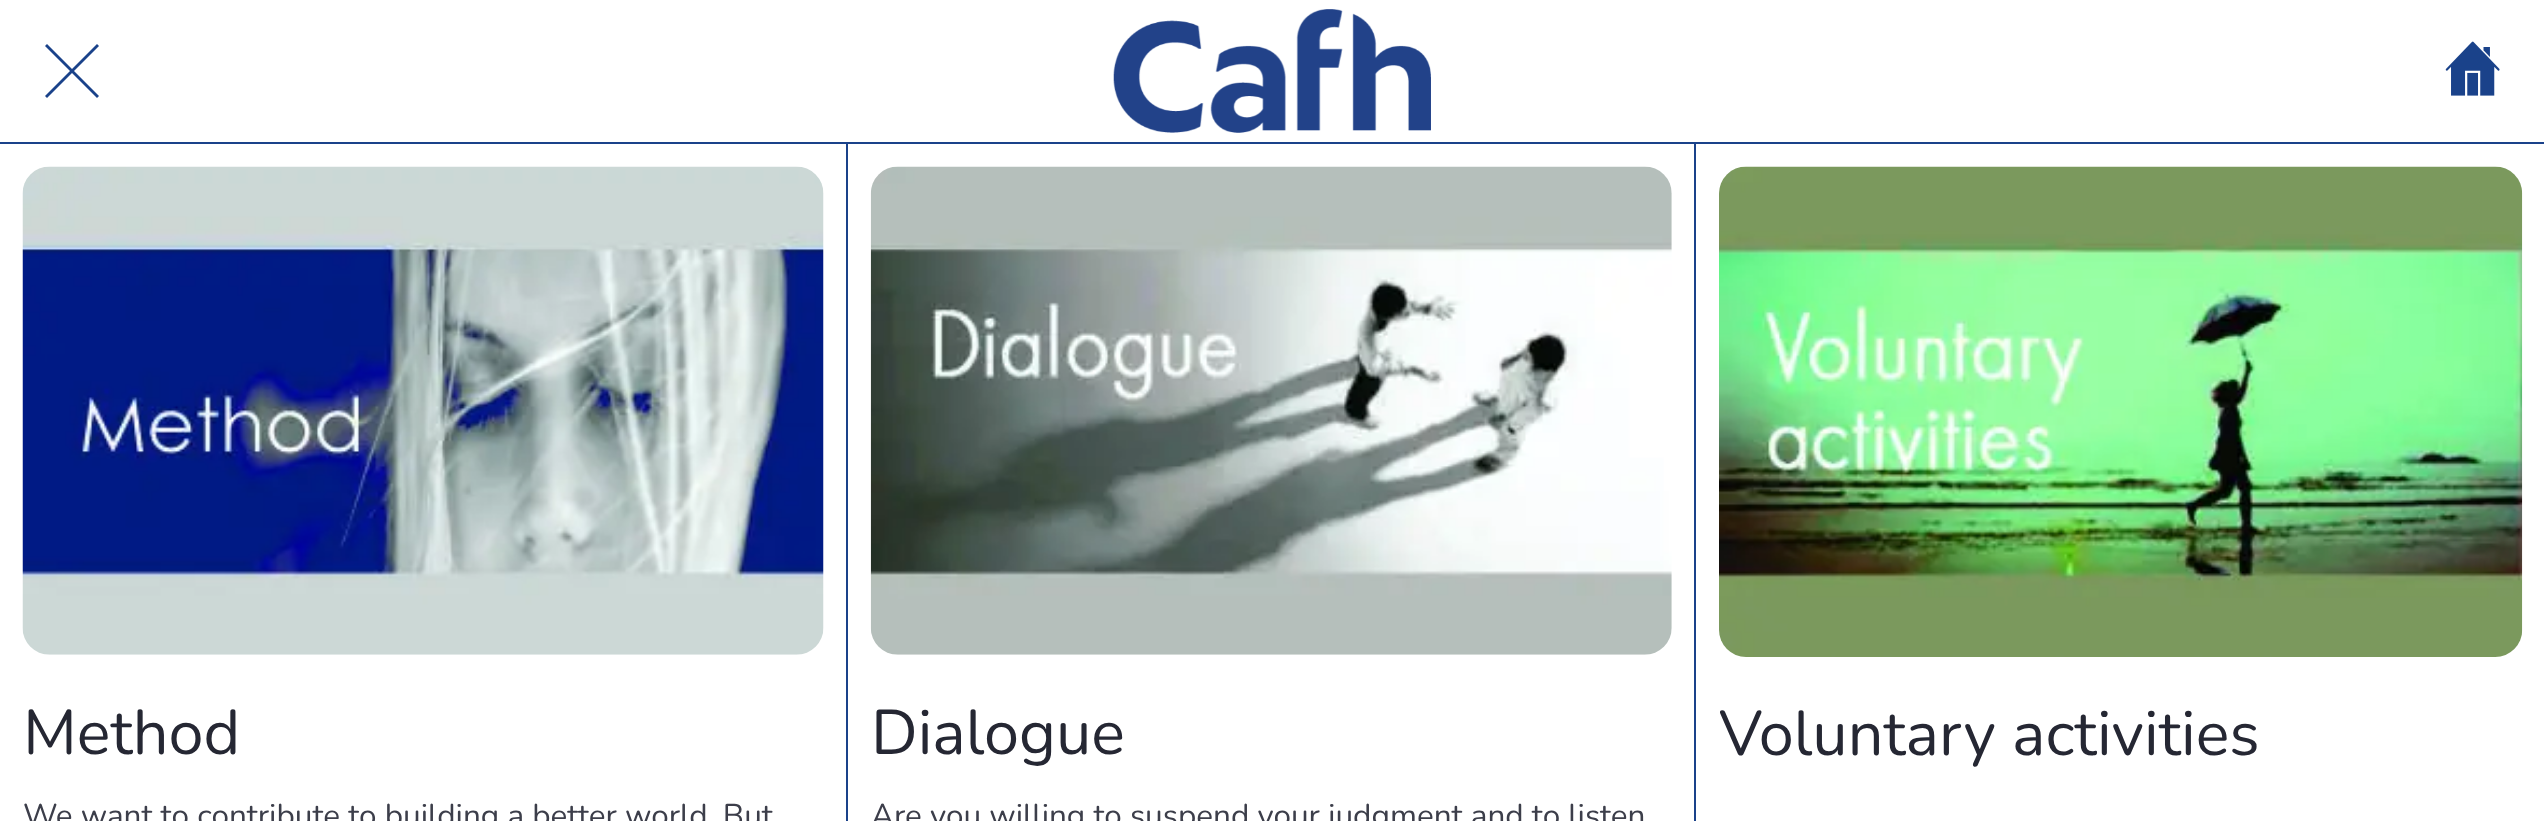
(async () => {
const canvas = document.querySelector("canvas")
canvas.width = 2544
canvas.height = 821
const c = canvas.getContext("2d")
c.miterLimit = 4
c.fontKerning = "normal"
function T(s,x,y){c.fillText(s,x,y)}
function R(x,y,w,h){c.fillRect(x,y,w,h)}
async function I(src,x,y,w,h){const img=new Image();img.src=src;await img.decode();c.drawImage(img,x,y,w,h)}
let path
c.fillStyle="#fff"
R(0,0,2544,821)
c.fillStyle="#1a428a"
R(0,142,2544,2)
path = new Path2D("M99 46l-2-2l-25 25l-25-25l-2 2l25 25l-25 25l2 2l25-25l25 25l2-2l-25-25z")
c.fill(path)
await I("1.png",1113,9,318,124)
await I("2.png",2445,41,55,55)
R(846,144,2,677)
await I("3.png",22,166,802,489)
c.font="63px Nunito"
c.fillStyle="#252733"
T("Method",23,754)
c.font="31.5px Nunito"
c.fillStyle="#3c3e4a"
T("We want to contribute to building a better world. But",23,826)
c.fillStyle="#1a428a"
R(1694,144,2,677)
await I("4.png",870,166,802,489)
c.font="63px Nunito"
c.fillStyle="#252733"
T("Dialogue",871,754)
c.font="31.5px Nunito"
c.fillStyle="#3c3e4a"
T("Are you willing to suspend your judgment and to listen",871,826)
await I("5.png",1719,166,804,491)
c.font="63px Nunito"
c.fillStyle="#252733"
T("Voluntary activities",1719,755)
})()
